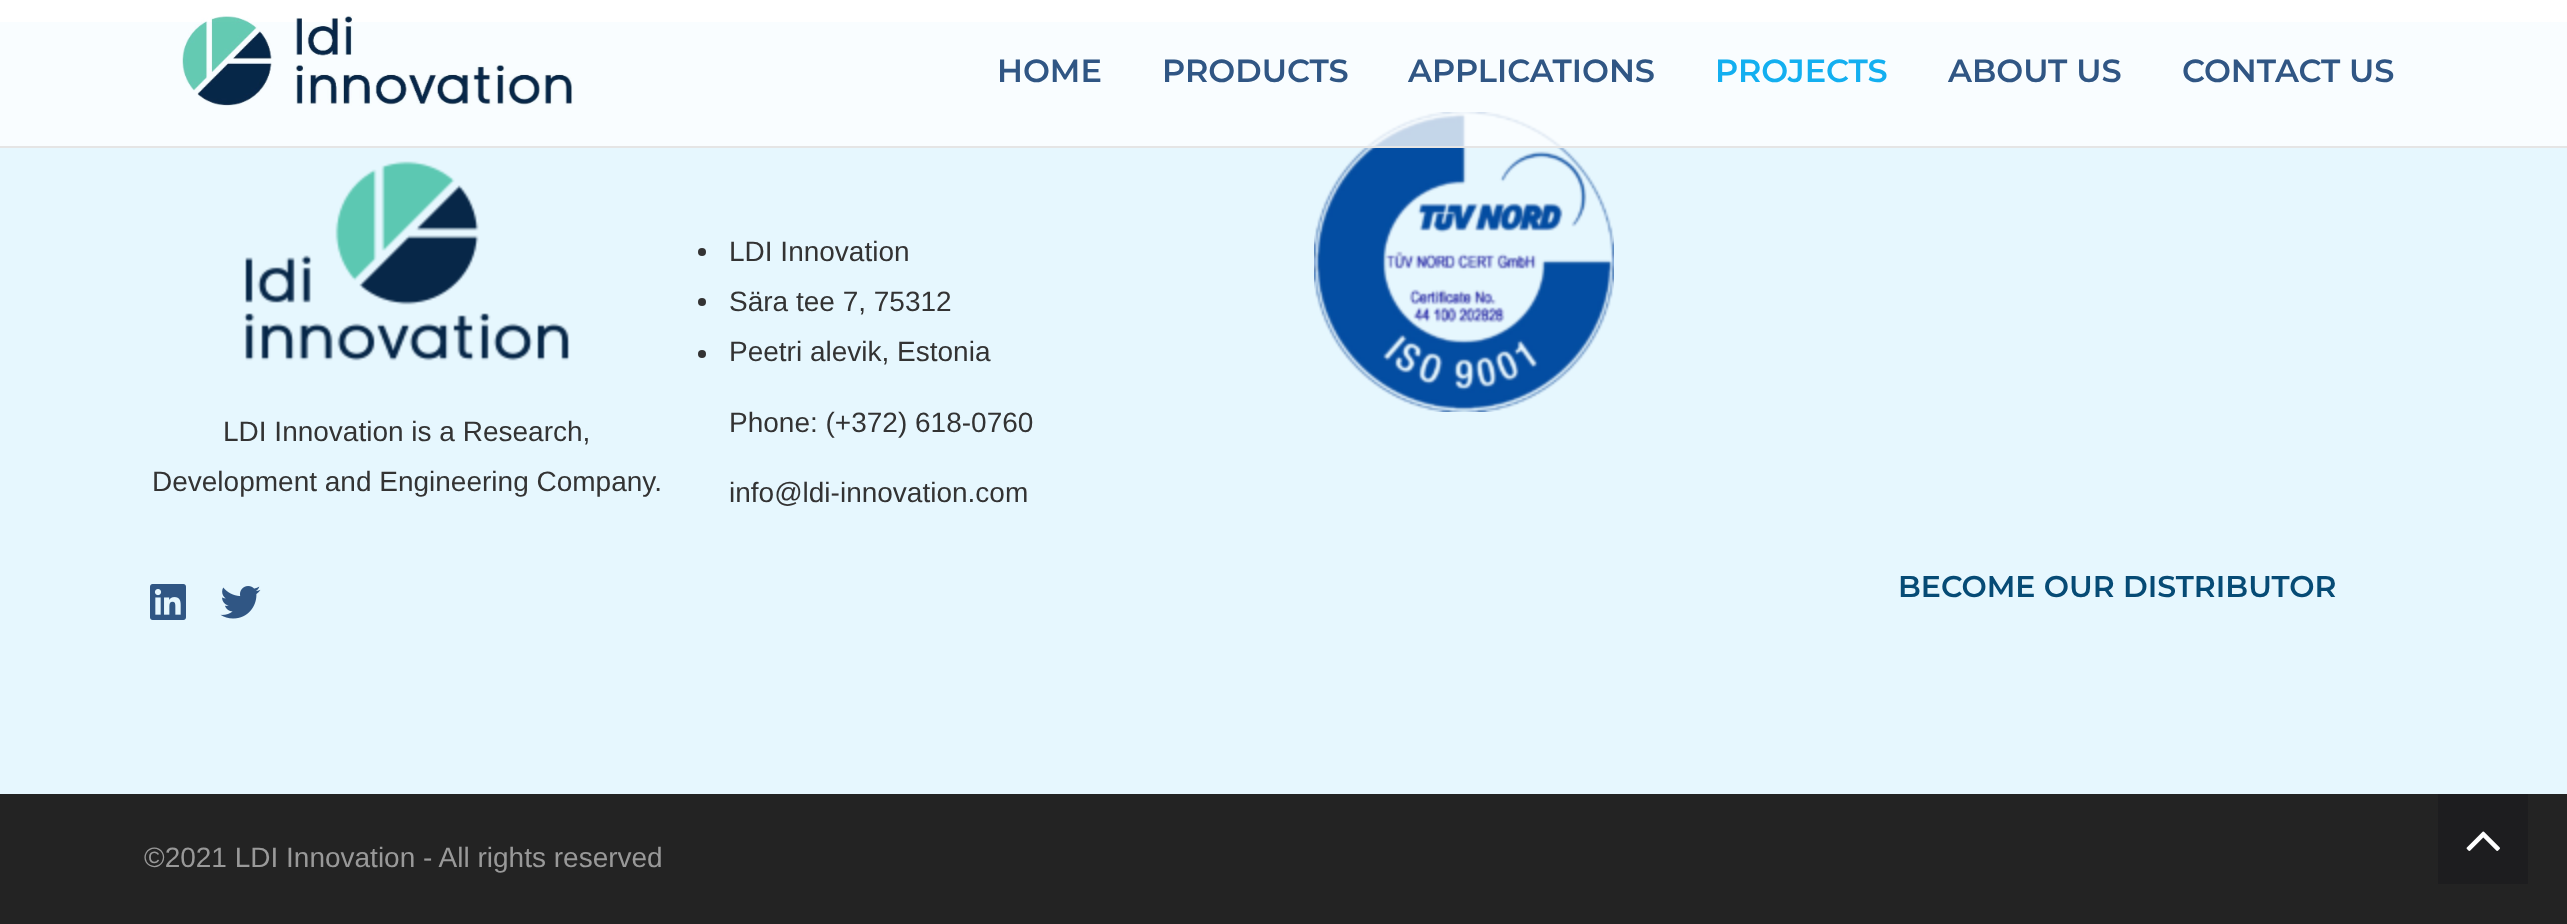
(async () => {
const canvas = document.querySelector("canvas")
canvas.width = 2567
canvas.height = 924
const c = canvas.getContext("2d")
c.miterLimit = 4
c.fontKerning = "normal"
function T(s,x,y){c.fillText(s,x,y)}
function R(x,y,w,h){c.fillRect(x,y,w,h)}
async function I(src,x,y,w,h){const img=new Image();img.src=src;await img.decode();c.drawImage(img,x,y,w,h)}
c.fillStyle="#fff"
R(0,0,2567,924)
c.fillStyle="#e6f7fe"
R(0,22,2567,772)
await I("5.png",1314,112,300,300)
c.fillStyle="#ffffffc4"
R(0,22,2567,124)
c.fillStyle="#e5e5e5"
R(0,146,2567,2)
await I("1.png",182,15,391,91)
c.font="600 32px Montserrat"
c.fillStyle="#305684"
T("HOME",997,82)
T("PRODUCTS",1162,82)
T("APPLICATIONS",1408,82)
c.fillStyle="#13aff0"
T("PROJECTS",1715,82)
c.fillStyle="#305684"
T("ABOUT US",1948,82)
T("CONTACT US",2182,82)
await I("2.png",243,161,327,200)
c.font="28px Liberation Sans"
c.fillStyle="#333"
T("LDI Innovation is a Research,",223,441)
T("Development and Engineering Company.",152,491)
await I("3.png",150,584,36,36)
await I("4.png",220,586,41,33)
c.beginPath()
c.arc(702,252,4,0,7)
c.fill()
T("LDI Innovation",729,261)
c.beginPath()
c.arc(702,302,4,0,7)
c.fill()
T("Sära tee 7, 75312",729,311)
c.beginPath()
c.arc(702,354,4,0,7)
c.fill()
T("Peetri alevik, Estonia",729,361)
T("Phone: (+372) 618-0760",729,432)
T("info@ldi-innovation.com",729,502)
c.font="600 30px Montserrat"
c.fillStyle="#064b75"
T("BECOME OUR DISTRIBUTOR",1898,597)
c.fillStyle="#232323"
R(0,794,2567,130)
c.font="28px Liberation Sans"
c.fillStyle="#999"
T("©2021 LDI Innovation - All rights reserved",144,867)
c.fillStyle="#1d1d1f"
R(2438,794,90,90)
await I("6.png",2466,831,34,20)
})()
